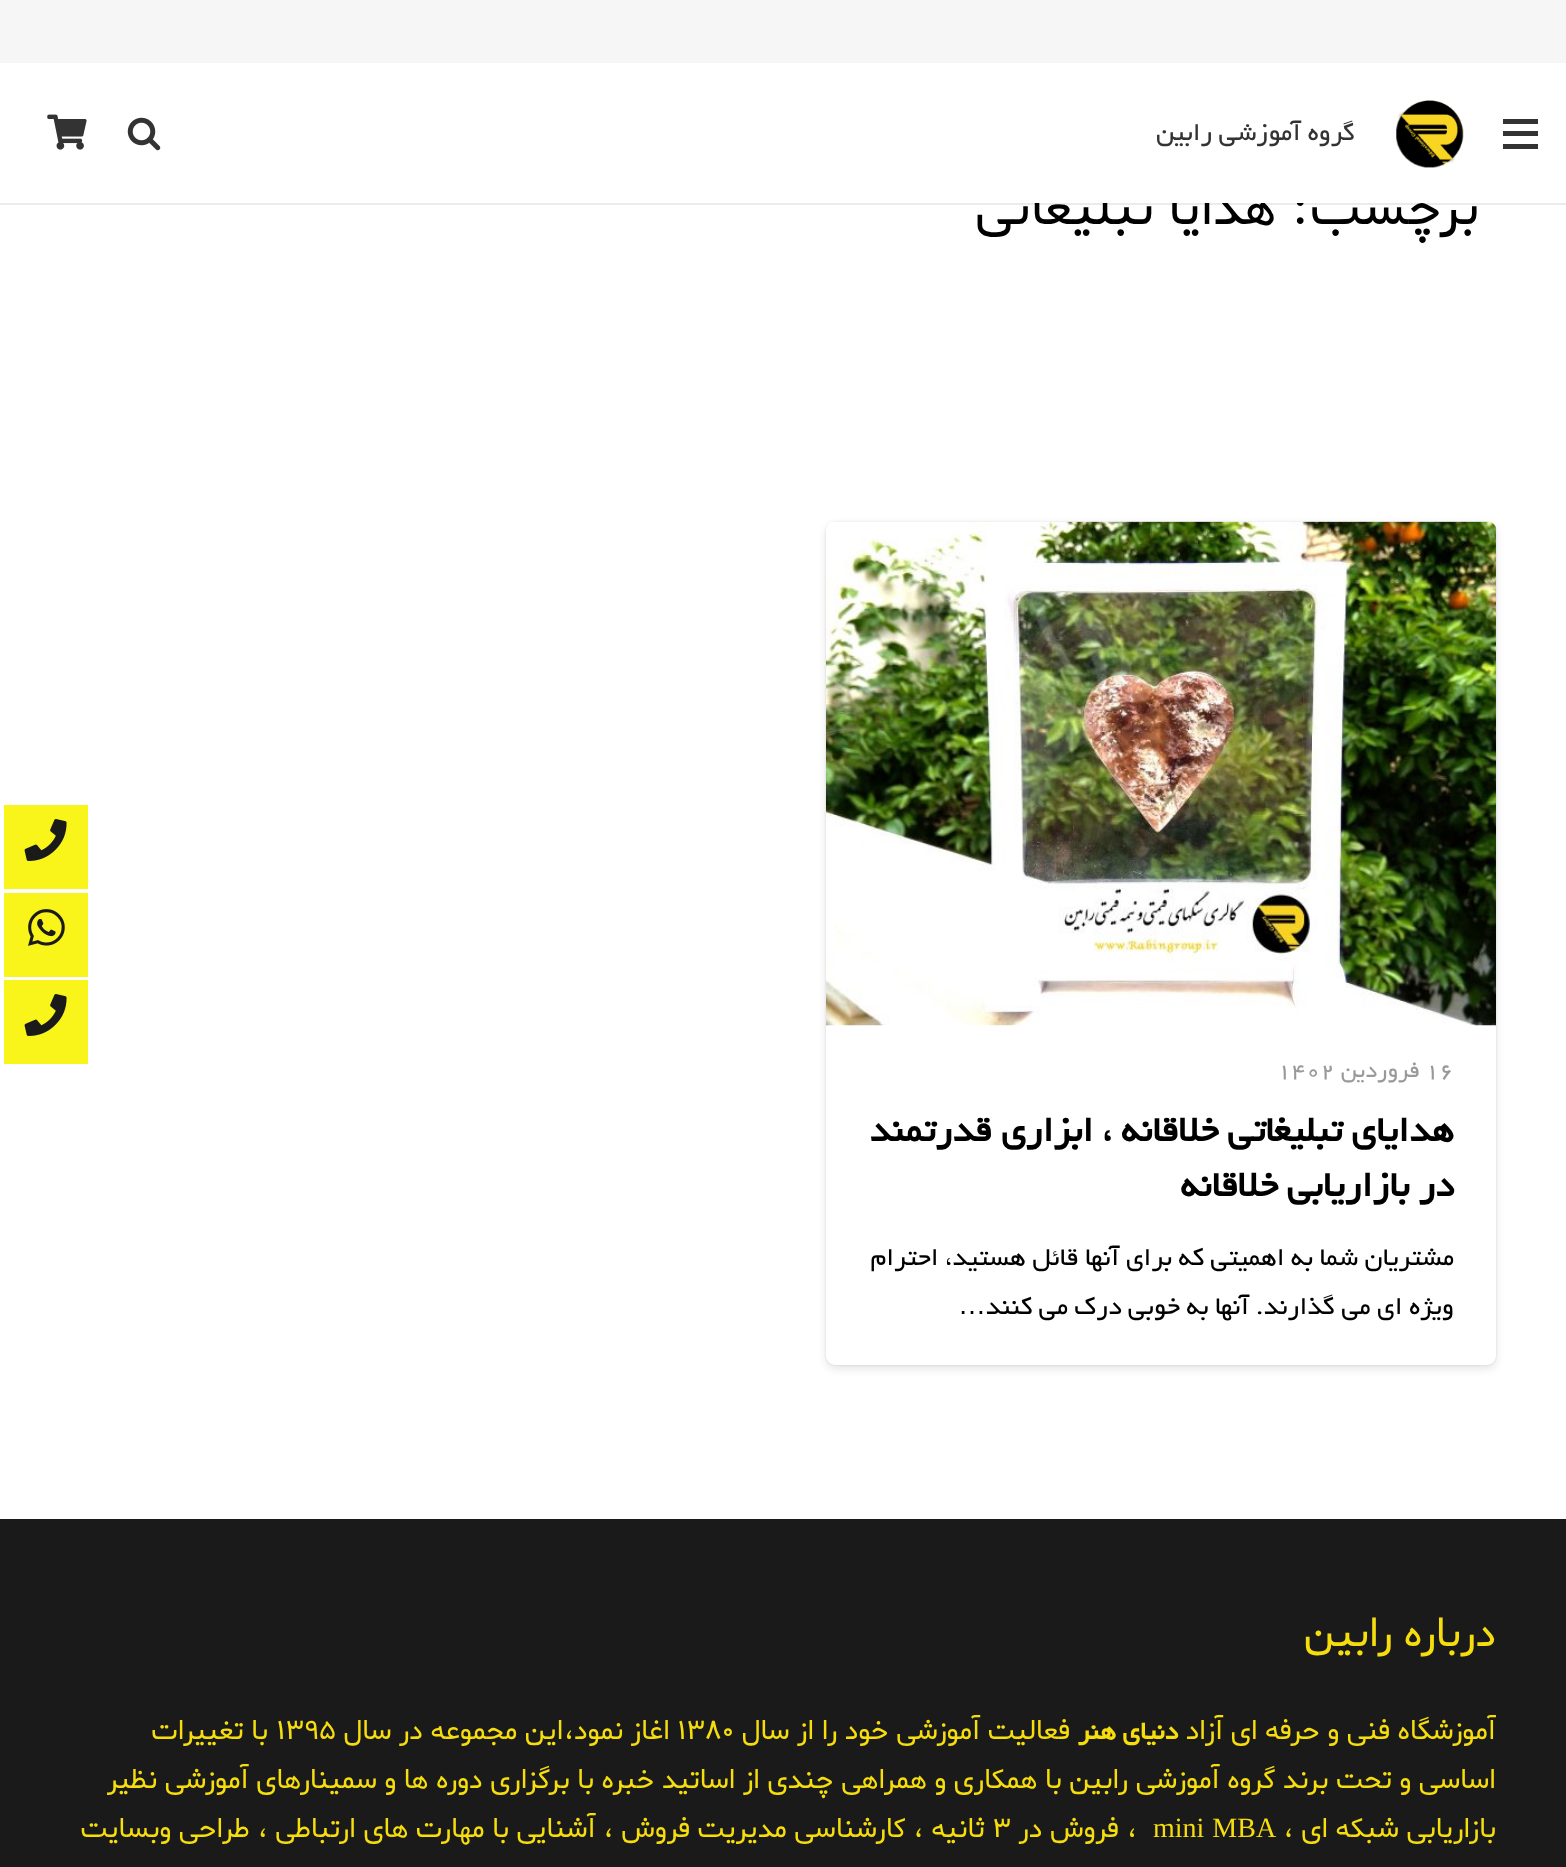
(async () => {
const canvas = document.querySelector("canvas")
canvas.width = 1566
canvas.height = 1867
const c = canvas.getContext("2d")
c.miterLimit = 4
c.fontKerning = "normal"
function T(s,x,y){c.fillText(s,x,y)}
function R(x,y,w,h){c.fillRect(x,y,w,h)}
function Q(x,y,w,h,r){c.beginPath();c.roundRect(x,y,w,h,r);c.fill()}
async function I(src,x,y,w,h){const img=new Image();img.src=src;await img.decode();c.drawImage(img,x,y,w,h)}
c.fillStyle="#fff"
R(0,0,1566,1867)
c.fillStyle="#f6f6f6"
R(0,0,1566,63)
c.fillStyle="#00000014"
R(0,203,1566,2)
c.direction="rtl"
c.font="52.5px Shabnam"
c.fillStyle="#000"
T("برچسب: هدایا تبلیغاتی",1479,224)
c.fillStyle="#fff"
R(1013,188,409,15)
c.fillStyle="#333"
R(1503,131,35,5)
R(1503,119,35,5)
R(1503,144,35,5)
await I("1.png",1396,100,68,68)
c.font="28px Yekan"
T("گروه آموزشی رابین",1355,140)
await I("2.png",127,117,34,34)
await I("3.png",47,114,40,36)
c.fillStyle="#0000001a"
c.filter="blur(4px)"
c.beginPath()
c.roundRect(826,525,670,844,9)
c.fill()
c.filter="none"
c.filter="blur(1px)"
c.beginPath()
c.roundRect(826,522,670,843,9)
c.fill()
c.filter="none"
c.fillStyle="#fff"
Q(826,522,670,843,9)
await I("4.png",826,521,670,505)
c.direction="ltr"
c.font="24.5px Yekan"
c.fillStyle="#999"
T("16",1425,1077)
c.direction="rtl"
T("فروردین",1420,1077)
c.direction="ltr"
T("1402",1277,1077)
c.direction="rtl"
c.font="bold 39.25px Yekan"
c.fillStyle="#000"
T("هدایای تبلیغاتی خلاقانه ، ابزاری قدرتمند",1454,1141)
T("در بازاریابی خلاقانه",1454,1196)
c.font="28px Yekan"
T("مشتریان شما به اهمیتی که برای آنها قائل هستید، احترام",1454,1265)
T("ویژه ای می گذارند. آنها به خوبی درک می کنند",1454,1314)
c.font="28px Liberation Sans"
T("…",986,1314)
c.fillStyle="#f9f51a"
R(4,805,84,84)
await I("5.png",24,819,43,42)
R(4,893,84,84)
await I("6.png",28,909,37,37)
R(4,980,84,84)
await I("5.png",24,994,43,42)
c.fillStyle="#1a1a1a"
R(0,1519,1566,348)
c.font="42px Shabnam"
c.fillStyle="#f6dd0e"
T("درباره رابین",1496,1646)
c.font="28px Shabnam"
T("آموزشگاه فنی و حرفه ای آزاد",1496,1739)
c.font="bold 28px Yekan"
T("دنیای هنر",1178,1739)
c.font="28px Shabnam"
T("فعالیت آموزشی خود را از سال",1070,1739)
c.direction="ltr"
T("۱۳۸۰",677,1739)
c.direction="rtl"
T("اغاز نمود،این مجموعه در سال",670,1739)
c.direction="ltr"
T("۱۳۹۵",276,1739)
c.direction="rtl"
T("با تغییرات",268,1739)
T("اساسی و تحت برند گروه آموزشی رابین با همکاری و همراهی چندی از اساتید خبره با برگزاری دوره ها و سمینارهای آموزشی نظیر",1496,1788)
T("بازاریابی شبکه ای ،",1496,1837)
c.wordSpacing="1px"
c.direction="ltr"
c.font="28px Liberation Serif"
T("mini MBA",1153,1837)
c.wordSpacing="0px"
c.direction="rtl"
c.font="28px Shabnam"
T("، فروش در",1137,1837)
c.direction="ltr"
T("۳",992,1837)
c.direction="rtl"
T("ثانیه ، کارشناسی مدیریت فروش ، آشنایی با مهارت های ارتباطی ، طراحی وبسایت",985,1837)
})()
